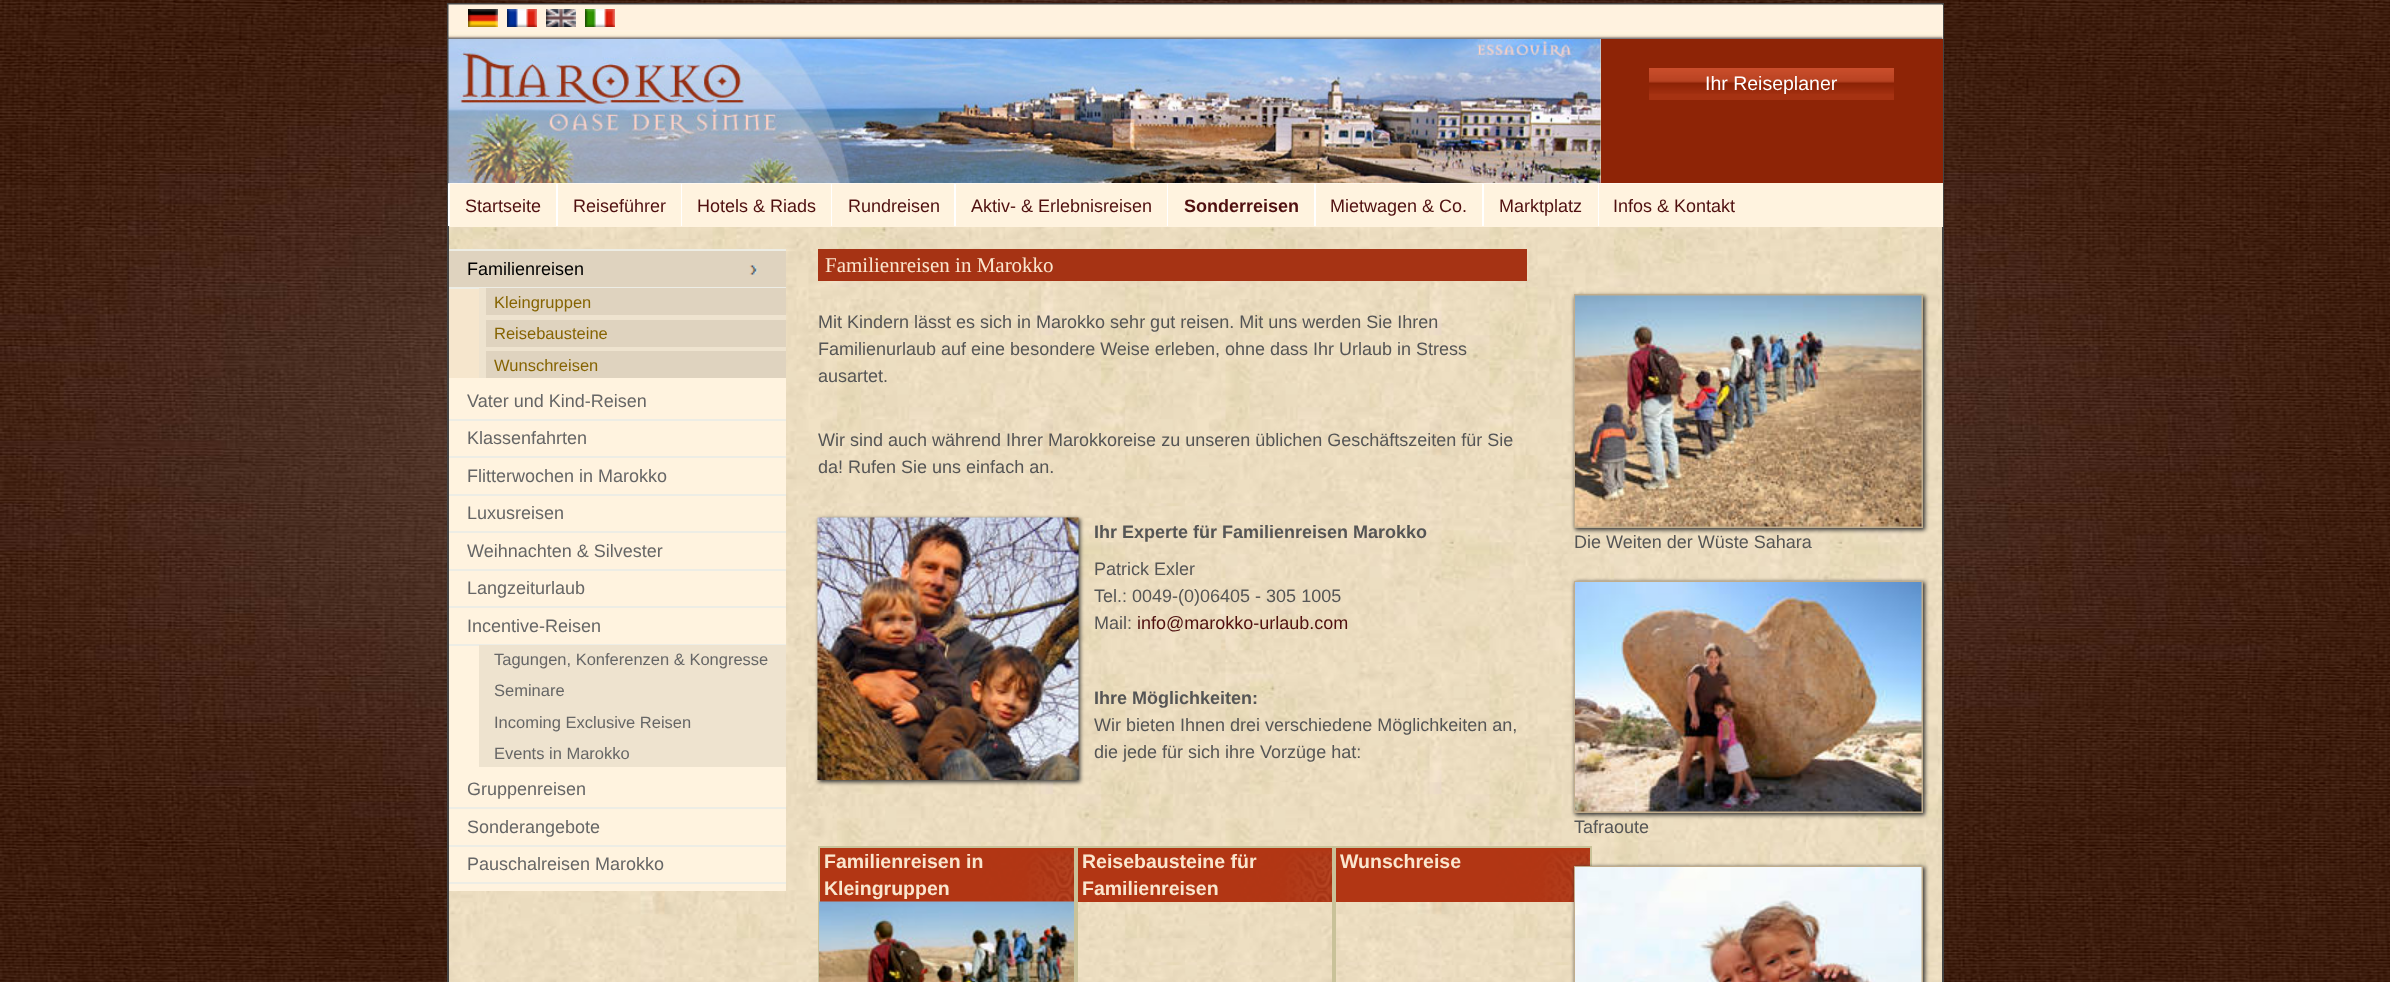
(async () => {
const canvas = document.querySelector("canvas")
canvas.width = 2390
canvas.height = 982
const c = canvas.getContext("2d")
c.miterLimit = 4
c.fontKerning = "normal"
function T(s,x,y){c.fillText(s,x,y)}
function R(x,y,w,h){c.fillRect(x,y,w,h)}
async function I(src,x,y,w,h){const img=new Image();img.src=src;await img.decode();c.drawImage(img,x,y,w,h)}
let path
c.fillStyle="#fff"
R(0,0,2390,982)
await I("1.png",0,0,2390,982)
await I("2.png",449,39,1493,943)
c.strokeStyle="#444"
c.lineWidth=2
c.strokeRect(448,4,1495,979)
c.fillStyle="#fff3de"
R(1942,5,1,34)
await I("3.png",448,4,1495,35)
await I("4.png",468,9,30,18)
await I("5.png",507,9,30,18)
await I("6.png",546,9,30,18)
await I("7.png",585,9,30,18)
c.fillStyle="#fff3df"
R(1600,170,343,57)
await I("8.png",448,39,1153,145)
c.fillStyle="#8e2406"
R(1601,39,342,144)
c.fillStyle="#a63212"
R(1649,94,245,6)
await I("9.png",1649,68,245,26)
c.font="19.5px Liberation Sans"
c.fillStyle="#fff"
T("Ihr Reiseplaner",1705,90)
c.fillStyle="#fff3df"
R(449,183,1152,44)
c.fillStyle="#fff9ef"
path = new Path2D("M448 183h108v1h-106z")
c.fill(path)
c.fillStyle="#fff"
path = new Path2D("M448 226v-43l2 1v42z")
c.fill(path)
c.font="18px Liberation Sans"
c.fillStyle="#4f0f0f"
T("Startseite",465,212)
c.fillStyle="#fff9ef"
path = new Path2D("M556 183h125v1h-123z")
c.fill(path)
c.fillStyle="#fff"
path = new Path2D("M556 226v-43l2 1v42z")
c.fill(path)
c.fillStyle="#4f0f0f"
T("Reiseführer",573,212)
c.fillStyle="#fff9ef"
path = new Path2D("M681 183h150v1h-149z")
c.fill(path)
c.fillStyle="#fff"
path = new Path2D("M681 226v-43l1 1v42z")
c.fill(path)
c.fillStyle="#4f0f0f"
T("Hotels & Riads",697,212)
c.fillStyle="#fff9ef"
path = new Path2D("M831 183h123v1h-122z")
c.fill(path)
c.fillStyle="#fff"
path = new Path2D("M831 226v-43l1 1v42z")
c.fill(path)
c.fillStyle="#4f0f0f"
T("Rundreisen",848,212)
c.fillStyle="#fff9ef"
path = new Path2D("M954 183h213v1h-211z")
c.fill(path)
c.fillStyle="#fff"
path = new Path2D("M954 226v-43l2 1v42z")
c.fill(path)
c.fillStyle="#4f0f0f"
T("Aktiv- & Erlebnisreisen",971,212)
c.fillStyle="#fff9ef"
path = new Path2D("M1167 183h147v1h-146z")
c.fill(path)
c.fillStyle="#fff"
path = new Path2D("M1167 226v-43l1 1v42z")
c.fill(path)
c.font="bold 18px Liberation Sans"
c.fillStyle="#4f0f0f"
T("Sonderreisen",1184,212)
c.fillStyle="#fff9ef"
path = new Path2D("M1314 183h168v1h-166z")
c.fill(path)
c.fillStyle="#fff"
path = new Path2D("M1314 226v-43l2 1v42z")
c.fill(path)
c.font="18px Liberation Sans"
c.fillStyle="#4f0f0f"
T("Mietwagen & Co.",1330,212)
c.fillStyle="#fff9ef"
path = new Path2D("M1482 183h116v1h-114z")
c.fill(path)
c.fillStyle="#fff"
path = new Path2D("M1482 226v-43l2 1v42z")
c.fill(path)
c.fillStyle="#4f0f0f"
T("Marktplatz",1499,212)
c.fillStyle="#fff9ef"
path = new Path2D("M1598 183h152v1h-151z")
c.fill(path)
c.fillStyle="#fff"
path = new Path2D("M1598 226v-43l1 1v42z")
c.fill(path)
c.fillStyle="#4f0f0f"
T("Infos & Kontakt",1613,212)
c.fillStyle="#fff3df"
R(449,378,337,513)
c.fillStyle="#edede5"
R(449,249,337,2)
c.fillStyle="#f6e6cd"
R(449,289,30,89)
c.fillStyle="#dfd3bf"
R(449,251,337,36)
await I("10.png",749,265,9,10)
c.fillStyle="#edede5"
R(449,287,337,2)
c.fillStyle="#000"
T("Familienreisen",467,275)
c.fillStyle="#eee3cf"
R(479,288,307,90)
c.fillStyle="#dfd3bf"
R(486,288,300,27)
c.font="16.5px Liberation Sans"
c.fillStyle="#866402"
T("Kleingruppen",494,308)
c.fillStyle="#dfd3bf"
R(486,320,300,27)
c.fillStyle="#866402"
T("Reisebausteine",494,339)
c.fillStyle="#dfd3bf"
R(486,351,300,27)
c.fillStyle="#866402"
T("Wunschreisen",494,371)
c.fillStyle="#edede5"
R(449,419,337,2)
c.font="18px Liberation Sans"
c.fillStyle="#666"
T("Vater und Kind-Reisen",467,407)
c.fillStyle="#edede5"
R(449,456,337,2)
c.fillStyle="#666"
T("Klassenfahrten",467,444)
c.fillStyle="#edede5"
R(449,494,337,2)
c.fillStyle="#666"
T("Flitterwochen in Marokko",467,482)
c.fillStyle="#edede5"
R(449,531,337,2)
c.fillStyle="#666"
T("Luxusreisen",467,519)
c.fillStyle="#edede5"
R(449,569,337,2)
c.fillStyle="#666"
T("Weihnachten & Silvester",467,557)
c.fillStyle="#edede5"
R(449,606,337,2)
c.fillStyle="#666"
T("Langzeiturlaub",467,594)
c.fillStyle="#edede5"
R(449,644,337,2)
c.fillStyle="#666"
T("Incentive-Reisen",467,632)
c.fillStyle="#eee3cf"
R(479,645,307,122)
c.font="16.5px Liberation Sans"
c.fillStyle="#666"
T("Tagungen, Konferenzen & Kongresse",494,665)
T("Seminare",494,696)
T("Incoming Exclusive Reisen",494,728)
T("Events in Marokko",494,759)
c.fillStyle="#edede5"
R(449,807,337,2)
c.font="18px Liberation Sans"
c.fillStyle="#666"
T("Gruppenreisen",467,795)
c.fillStyle="#edede5"
R(449,845,337,2)
c.fillStyle="#666"
T("Sonderangebote",467,833)
c.fillStyle="#edede5"
R(449,882,337,2)
c.fillStyle="#666"
T("Pauschalreisen Marokko",467,870)
c.fillStyle="#a63314"
R(818,249,709,32)
c.font="21px Liberation Serif"
c.fillStyle="#fae6ce"
T("Familienreisen in Marokko",825,272)
c.font="18px Liberation Sans"
c.fillStyle="#555"
T("Mit Kindern lässt es sich in Marokko sehr gut reisen. Mit uns werden Sie Ihren",818,328)
T("Familienurlaub auf eine besondere Weise erleben, ohne dass Ihr Urlaub in Stress",818,355)
T("ausartet.",818,382)
T("Wir sind auch während Ihrer Marokkoreise zu unseren üblichen Geschäftszeiten für Sie",818,446)
T("da! Rufen Sie uns einfach an.",818,473)
c.fillStyle="#333"
c.filter="blur(2px)"
c.beginPath()
c.rect(819,519,261,263)
c.fill()
c.filter="none"
await I("11.png",817,517,262,263)
c.font="bold 18px Liberation Sans"
c.fillStyle="#555"
T("Ihr Experte für Familienreisen Marokko",1094,538)
c.font="18px Liberation Sans"
T("Patrick Exler",1094,575)
T("Tel.: 0049-(0)06405 - 305 1005",1094,602)
T("Mail:",1094,629)
c.fillStyle="#4f0f0f"
T("info@marokko-urlaub.com",1137,629)
c.font="bold 18px Liberation Sans"
c.fillStyle="#555"
T("Ihre Möglichkeiten:",1094,704)
c.font="18px Liberation Sans"
T("Wir bieten Ihnen drei verschiedene Möglichkeiten an,",1094,731)
T("die jede für sich ihre Vorzüge hat:",1094,758)
c.fillStyle="#c9c299"
R(818,846,774,2)
R(1074,846,4,136)
R(818,846,2,136)
c.fillStyle="#b23614"
R(820,848,254,54)
await I("12.png",882,848,192,54)
c.font="bold 19.5px Liberation Sans"
c.fillStyle="#fae6ce"
T("Familienreisen in",824,868)
T("Kleingruppen",824,895)
await I("13.png",819,901,255,81)
c.fillStyle="#c9c299"
R(1332,846,4,136)
c.fillStyle="#b23614"
R(1078,848,254,54)
await I("12.png",1140,848,192,54)
c.fillStyle="#fae6ce"
T("Reisebausteine für",1082,868)
T("Familienreisen",1082,895)
c.fillStyle="#c9c299"
R(1590,846,2,20)
c.fillStyle="#b23614"
R(1336,848,238,54)
await I("12.png",1398,848,192,54)
c.fillStyle="#fae6ce"
T("Wunschreise",1340,868)
c.fillStyle="#333"
c.filter="blur(2px)"
c.beginPath()
c.rect(1575,296,350,234)
c.fill()
c.filter="none"
c.strokeStyle="#c0ac8b"
c.strokeRect(1575,295,347,232)
await I("14.png",1575,295,347,232)
c.font="18px Liberation Sans"
c.fillStyle="#555"
T("Die Weiten der Wüste Sahara",1574,548)
c.fillStyle="#333"
c.filter="blur(2px)"
c.beginPath()
c.rect(1575,582,350,233)
c.fill()
c.filter="none"
c.strokeRect(1575,582,347,230)
await I("15.png",1575,582,347,230)
c.fillStyle="#555"
T("Tafraoute",1574,833)
c.fillStyle="#333"
c.filter="blur(2px)"
c.beginPath()
c.rect(1575,867,350,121)
c.fill()
c.filter="none"
c.strokeRect(1575,867,347,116)
await I("16.png",1575,867,347,115)
})()
